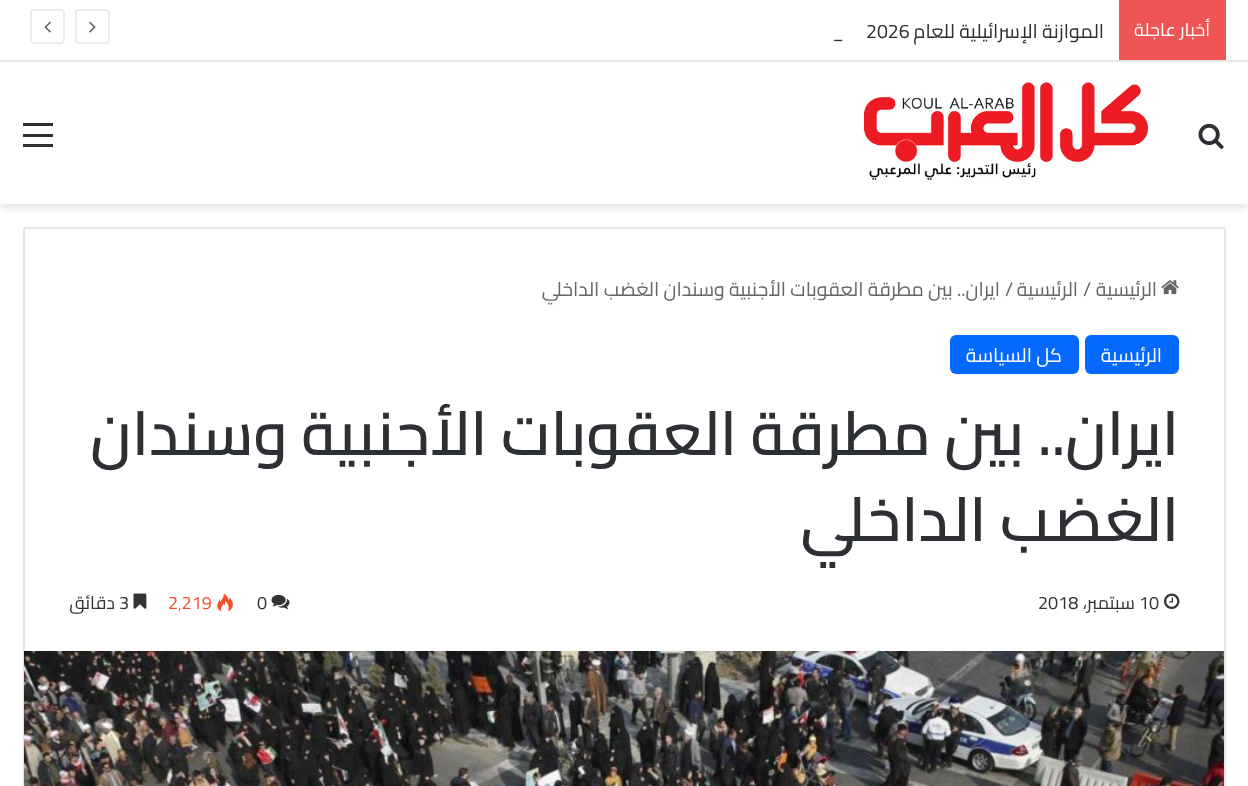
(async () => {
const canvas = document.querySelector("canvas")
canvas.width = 1248
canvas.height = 786
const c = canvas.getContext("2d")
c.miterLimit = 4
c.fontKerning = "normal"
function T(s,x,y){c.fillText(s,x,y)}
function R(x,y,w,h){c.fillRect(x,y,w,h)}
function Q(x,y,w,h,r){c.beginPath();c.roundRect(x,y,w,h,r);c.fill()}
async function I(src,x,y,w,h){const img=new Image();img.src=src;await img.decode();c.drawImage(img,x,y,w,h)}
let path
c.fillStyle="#fff"
R(0,0,1248,786)
c.save()
c.beginPath()
c.rect(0,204,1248,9)
c.clip()
c.fillStyle="#0000001a"
c.filter="blur(5px)"
c.beginPath()
c.rect(0,66,1248,143)
c.fill()
c.filter="none"
c.restore()
c.fillStyle="#e6e6e6"
R(0,60,1248,2)
c.fillStyle="#f05555"
R(1119,0,107,60)
c.direction="rtl"
c.font="18px Cairo"
c.fillStyle="#fff"
T("أخبار عاجلة",1210,36)
c.font="19.5px Cairo"
c.fillStyle="#2c2f34"
T("الموازنة الإسرائيلية للعام",1104,38)
c.direction="ltr"
T("2026",866,38)
T("_",832,38)
path = new Path2D("M106.5 43h-28.5c-1 0-2-1.5-2-2.5v-28.5c0-1 1-2 2-2h28.5c1 0 2.5 1 2.5 2v28.5c0 1-1.5 2.5-2.5 2.5z")
c.strokeStyle="#e6e6e6"
c.lineWidth=1.5
c.stroke(path)
await I("1.png",89,21,7,12)
path = new Path2D("M61.5 43h-28.5c-1 0-2-1.5-2-2.5v-28.5c0-1 1-2 2-2h28.5c1 0 2.5 1 2.5 2v28.5c0 1-1.5 2.5-2.5 2.5z")
c.stroke(path)
await I("2.png",44,21,7,12)
await I("3.png",1198,123,26,26)
await I("4.png",864,82,285,99)
R(23,134,30,3)
R(23,123,30,3)
R(23,144,30,3)
c.beginPath()
c.roundRect(24,228,1201,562,2)
c.lineWidth=2
c.stroke()
await I("5.png",1161,280,18,15)
c.direction="rtl"
c.fillStyle="#666"
T("الرئيسية",1157,296)
c.direction="ltr"
T("/",1083,296)
c.direction="rtl"
T("الرئيسية",1078,296)
c.direction="ltr"
T("/",1005,296)
c.direction="rtl"
T("ايران.. بين مطرقة العقوبات الأجنبية وسندان الغضب الداخلي",1000,296)
c.fillStyle="#0669ff"
Q(1085,335,94,39,6)
c.fillStyle="#fff"
T("الرئيسية",1162,362)
c.fillStyle="#0669ff"
Q(950,335,129,39,6)
c.fillStyle="#fff"
T("كل السياسة",1062,362)
c.font="600 61.5px Cairo"
c.fillStyle="#2c2f34"
T("ايران.. بين مطرقة العقوبات الأجنبية وسندان",1179,455)
T("الغضب الداخلي",1179,541)
await I("6.png",1164,593,16,16)
c.direction="ltr"
c.font="18px Cairo"
c.fillStyle="#333"
T("10",1139,609)
c.direction="rtl"
T("سبتمبر،",1135,609)
c.direction="ltr"
T("2018",1038,609)
await I("7.png",271,594,19,15)
T("0",257,609)
await I("8.png",217,593,16,19)
c.fillStyle="#f3502a"
T("2٬219",168,609)
await I("9.png",133,593,14,16)
c.fillStyle="#333"
T("3",119,609)
c.direction="rtl"
T("دقائق",115,609)
await I("10.png",24,651,1200,135)
})()
